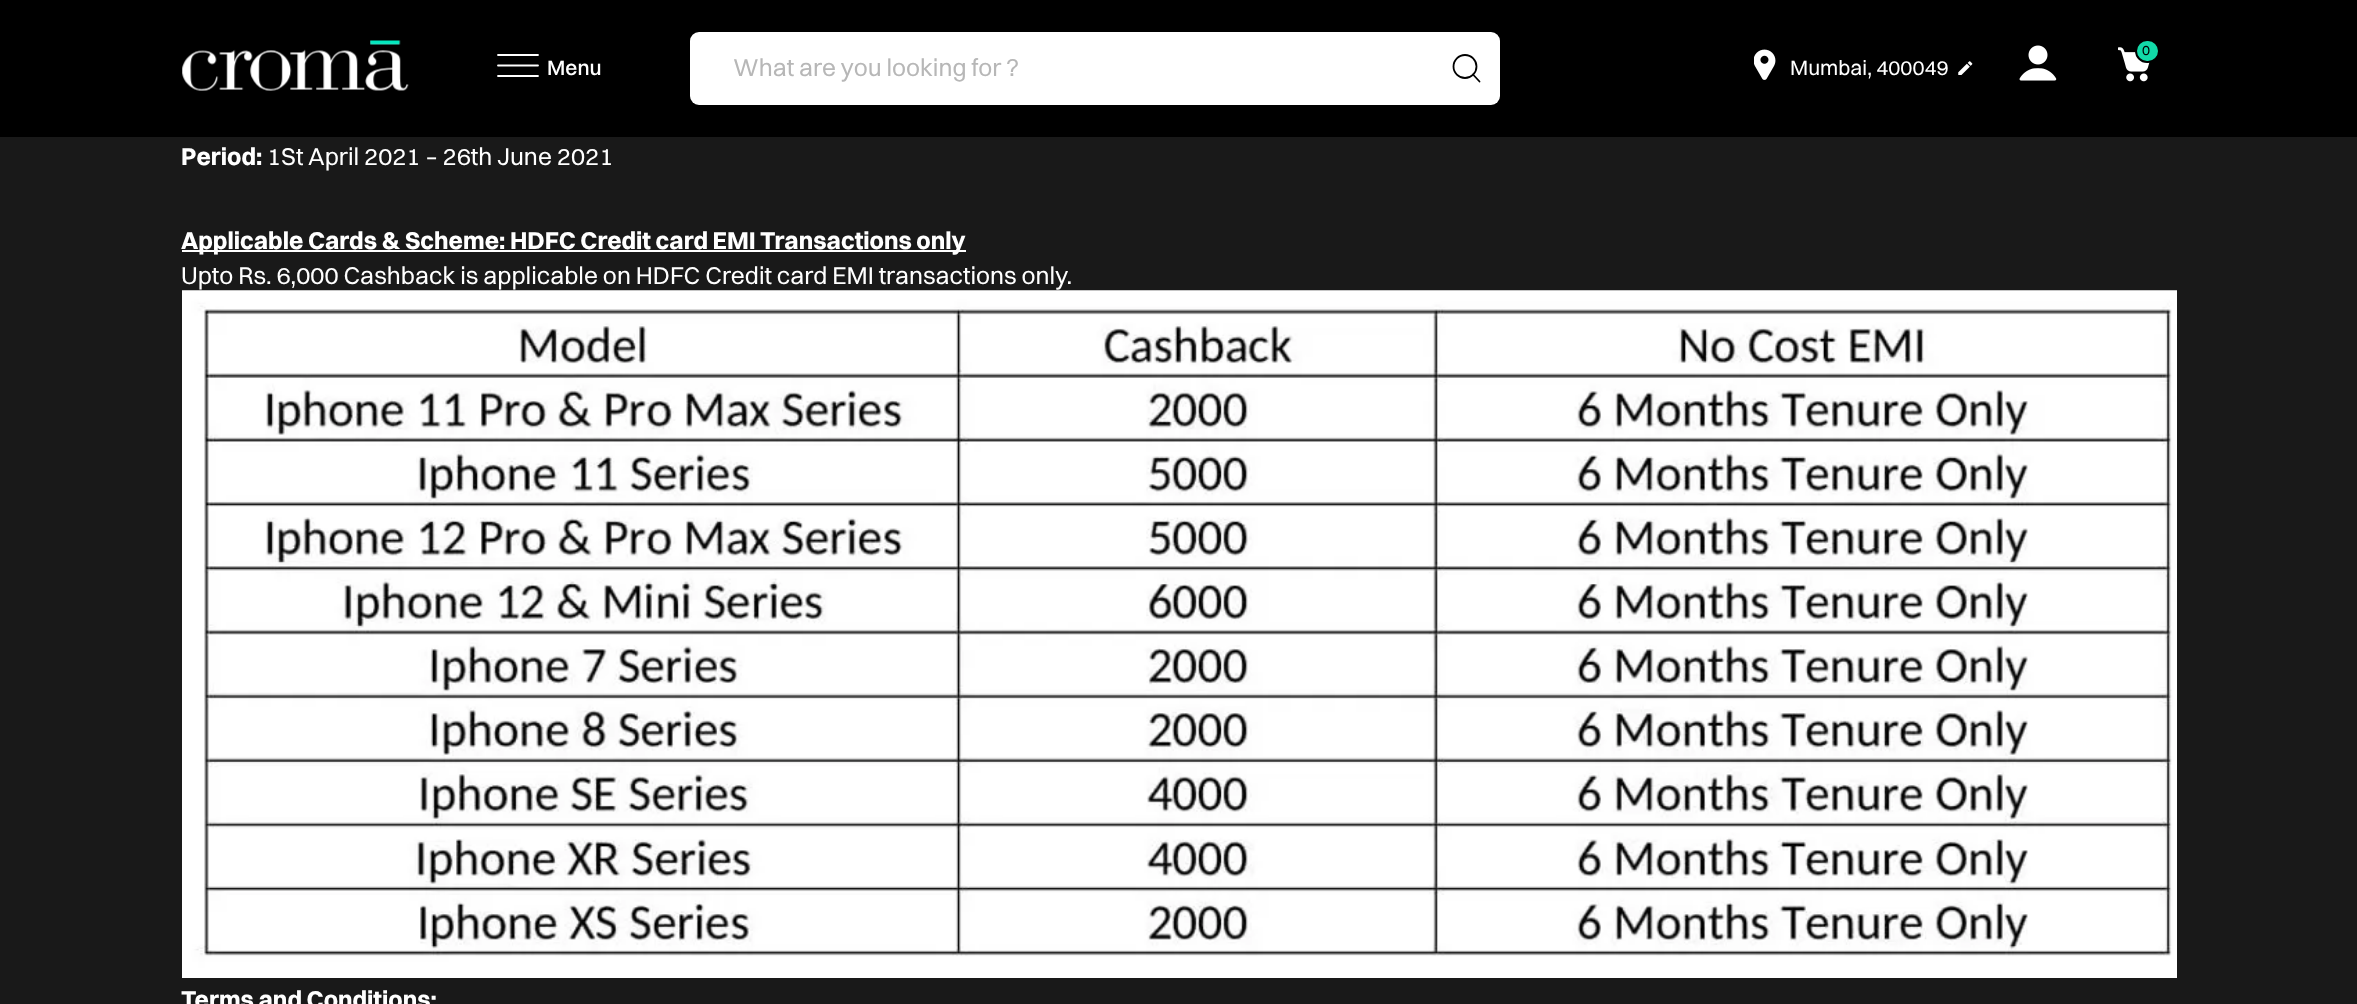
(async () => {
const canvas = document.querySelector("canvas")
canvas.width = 2357
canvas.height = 1004
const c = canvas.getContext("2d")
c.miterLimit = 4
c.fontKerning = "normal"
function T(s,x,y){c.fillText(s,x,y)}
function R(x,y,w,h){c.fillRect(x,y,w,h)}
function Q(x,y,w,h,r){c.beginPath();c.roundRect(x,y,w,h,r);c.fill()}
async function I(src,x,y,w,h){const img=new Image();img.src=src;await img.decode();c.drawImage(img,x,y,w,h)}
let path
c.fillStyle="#191919"
R(0,0,2357,1004)
c.fillStyle="#000"
R(0,0,2357,137)
await I("1.png",182,40,227,51)
path = new Path2D("M498 55h40m-40 10.5h40m-40 10.5h40")
c.strokeStyle="#fff"
c.lineWidth=1.8
c.lineCap="round"
c.stroke(path)
c.font="500 21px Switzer"
c.fillStyle="#fff"
T("Menu",547,75)
Q(690,32,810,73,9)
c.font="24.5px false"
c.fillStyle="#b7b7b7"
T("What are you looking for ?",733,76)
c.beginPath()
c.arc(1465,66.5,11.5,0,7)
c.strokeStyle="#000"
c.stroke()
path = new Path2D("M1473 74.5l6.5 7")
c.lineJoin="round"
c.stroke(path)
await I("2.png",2019,45,38,36)
await I("3.png",2118,47,32,35)
c.fillStyle="#12daa8"
c.beginPath()
c.roundRect(2136,40,23,22,11)
c.fill()
c.lineWidth=2
c.lineJoin="miter"
c.stroke()
c.letterSpacing="1px"
c.font="14px false"
c.fillStyle="#000"
T("0",2142,55)
await I("4.png",1754,49,22,31)
c.letterSpacing="0px"
c.font="21px false"
c.fillStyle="#fff"
T("Mumbai, 400049",1790,75)
await I("5.png",1958,61,15,14)
c.font="bold 24.5px false"
T("Period:",181,165)
c.font="24.5px false"
T("1St",267,165)
T("April 2021 – 26th June 2021",308,165)
R(182,250,784,2)
c.font="bold 24.5px false"
T("Applicable Cards & Scheme: HDFC Credit card EMI Transactions only",181,249)
c.font="24.5px false"
T("Upto Rs. 6,000 Cashback is applicable on HDFC Credit card EMI transactions only.",181,284)
await I("6.png",182,290,1995,688)
c.font="bold 24.5px false"
T("Terms and Conditions:",181,1008)
})()
